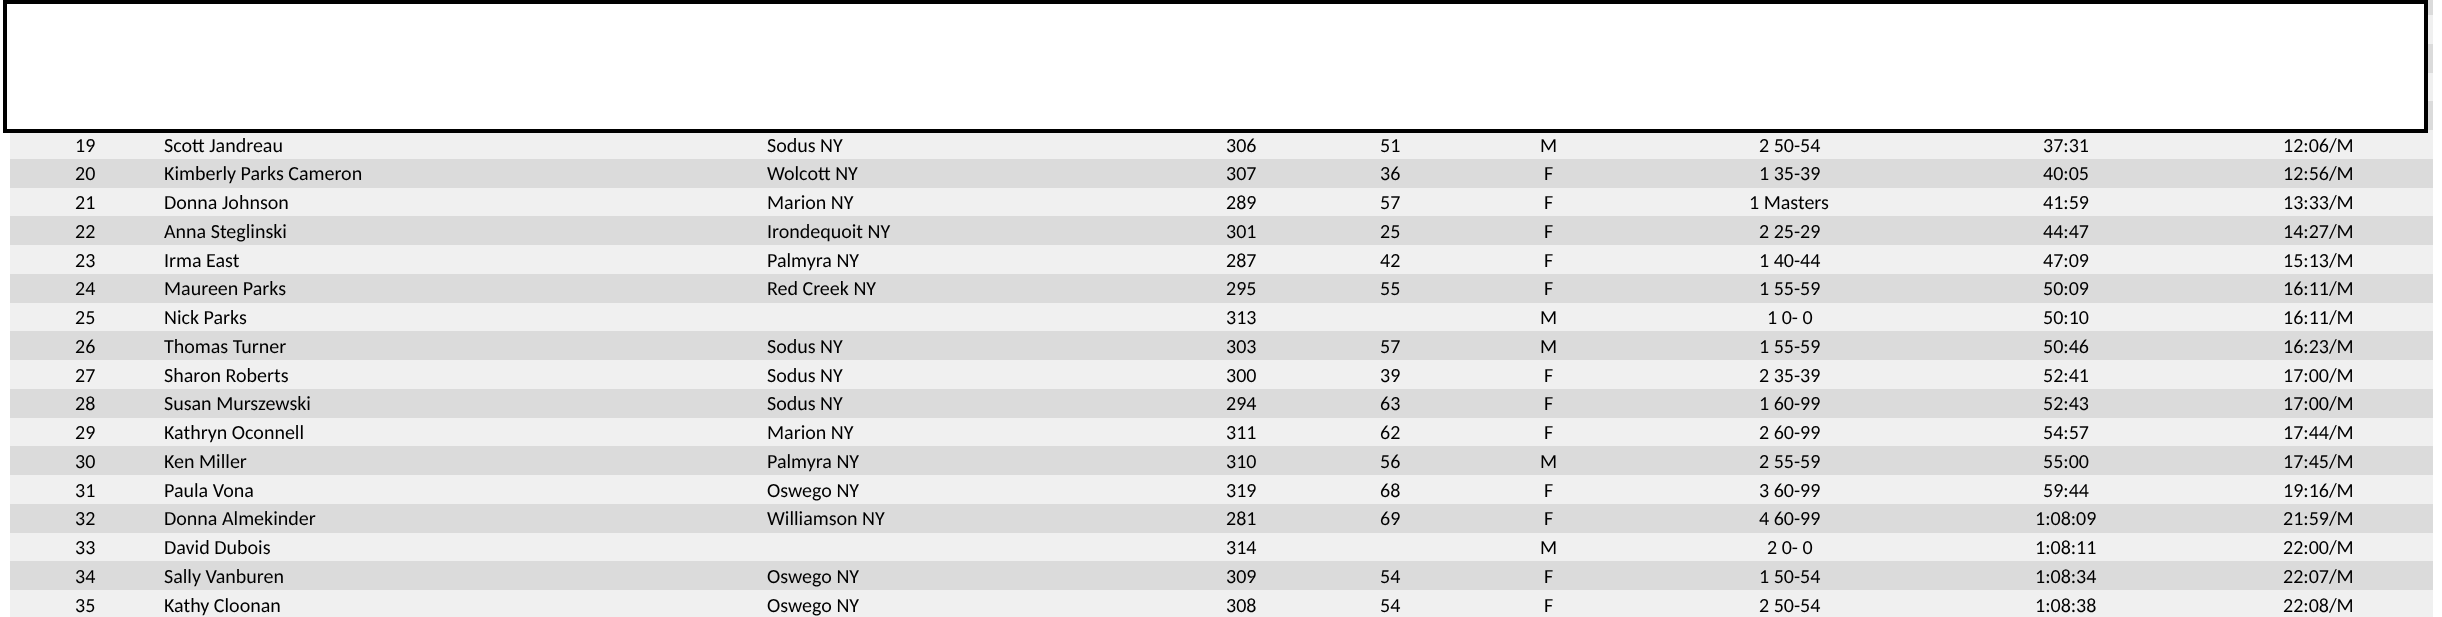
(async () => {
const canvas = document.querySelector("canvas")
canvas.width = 2442
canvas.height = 617
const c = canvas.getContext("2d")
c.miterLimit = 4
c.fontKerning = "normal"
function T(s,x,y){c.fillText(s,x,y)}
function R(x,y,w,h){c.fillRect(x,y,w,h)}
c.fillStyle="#fff"
R(0,0,2442,617)
c.fillStyle="#f0f0f0"
R(10,130,2423,29)
c.strokeStyle="#000"
c.lineWidth=4
c.strokeRect(5,2,2421,129)
c.fillStyle="#dbdbdb"
R(2428,0,5,15)
c.fillStyle="#f0f0f0"
R(2428,15,5,29)
c.fillStyle="#dbdbdb"
R(2428,44,5,29)
c.fillStyle="#f0f0f0"
R(2428,73,5,28)
c.fillStyle="#dbdbdb"
R(2428,101,5,29)
c.font="20px Carlito"
c.fillStyle="#000"
T("19",75,152)
T("Scott Jandreau",164,152)
T("Sodus NY",767,152)
T("306",1226,152)
T("51",1380,152)
T("M",1540,152)
T("2 50-54",1759,152)
T("37:31",2043,152)
T("12:06/M",2283,152)
c.fillStyle="#dbdbdb"
R(10,159,2423,29)
c.fillStyle="#000"
T("20",75,180)
T("Kimberly Parks Cameron",164,180)
T("Wolcott NY",767,180)
T("307",1226,180)
T("36",1380,180)
T("F",1544,180)
T("1 35-39",1759,180)
T("40:05",2043,180)
T("12:56/M",2283,180)
c.fillStyle="#f0f0f0"
R(10,188,2423,28)
c.fillStyle="#000"
T("21",75,209)
T("Donna Johnson",164,209)
T("Marion NY",767,209)
T("289",1226,209)
T("57",1380,209)
T("F",1544,209)
T("1 Masters",1749,209)
T("41:59",2043,209)
T("13:33/M",2283,209)
c.fillStyle="#dbdbdb"
R(10,216,2423,29)
c.fillStyle="#000"
T("22",75,238)
T("Anna Steglinski",164,238)
T("Irondequoit NY",767,238)
T("301",1226,238)
T("25",1380,238)
T("F",1544,238)
T("2 25-29",1759,238)
T("44:47",2043,238)
T("14:27/M",2283,238)
c.fillStyle="#f0f0f0"
R(10,245,2423,29)
c.fillStyle="#000"
T("23",75,267)
T("Irma East",164,267)
T("Palmyra NY",767,267)
T("287",1226,267)
T("42",1380,267)
T("F",1544,267)
T("1 40-44",1759,267)
T("47:09",2043,267)
T("15:13/M",2283,267)
c.fillStyle="#dbdbdb"
R(10,274,2423,29)
c.fillStyle="#000"
T("24",75,295)
T("Maureen Parks",164,295)
T("Red Creek NY",767,295)
T("295",1226,295)
T("55",1380,295)
T("F",1544,295)
T("1 55-59",1759,295)
T("50:09",2043,295)
T("16:11/M",2283,295)
c.fillStyle="#f0f0f0"
R(10,303,2423,28)
c.fillStyle="#000"
T("25",75,324)
T("Nick Parks",164,324)
T("313",1226,324)
T("M",1540,324)
T("1 0- 0",1767,324)
T("50:10",2043,324)
T("16:11/M",2283,324)
c.fillStyle="#dbdbdb"
R(10,331,2423,29)
c.fillStyle="#000"
T("26",75,353)
T("Thomas Turner",164,353)
T("Sodus NY",767,353)
T("303",1226,353)
T("57",1380,353)
T("M",1540,353)
T("1 55-59",1759,353)
T("50:46",2043,353)
T("16:23/M",2283,353)
c.fillStyle="#f0f0f0"
R(10,360,2423,29)
c.fillStyle="#000"
T("27",75,382)
T("Sharon Roberts",164,382)
T("Sodus NY",767,382)
T("300",1226,382)
T("39",1380,382)
T("F",1544,382)
T("2 35-39",1759,382)
T("52:41",2043,382)
T("17:00/M",2283,382)
c.fillStyle="#dbdbdb"
R(10,389,2423,29)
c.fillStyle="#000"
T("28",75,410)
T("Susan Murszewski",164,410)
T("Sodus NY",767,410)
T("294",1226,410)
T("63",1380,410)
T("F",1544,410)
T("1 60-99",1759,410)
T("52:43",2043,410)
T("17:00/M",2283,410)
c.fillStyle="#f0f0f0"
R(10,418,2423,28)
c.fillStyle="#000"
T("29",75,439)
T("Kathryn Oconnell",164,439)
T("Marion NY",767,439)
T("311",1226,439)
T("62",1380,439)
T("F",1544,439)
T("2 60-99",1759,439)
T("54:57",2043,439)
T("17:44/M",2283,439)
c.fillStyle="#dbdbdb"
R(10,446,2423,29)
c.fillStyle="#000"
T("30",75,468)
T("Ken Miller",164,468)
T("Palmyra NY",767,468)
T("310",1226,468)
T("56",1380,468)
T("M",1540,468)
T("2 55-59",1759,468)
T("55:00",2043,468)
T("17:45/M",2283,468)
c.fillStyle="#f0f0f0"
R(10,475,2423,29)
c.fillStyle="#000"
T("31",75,497)
T("Paula Vona",164,497)
T("Oswego NY",767,497)
T("319",1226,497)
T("68",1380,497)
T("F",1544,497)
T("3 60-99",1759,497)
T("59:44",2043,497)
T("19:16/M",2283,497)
c.fillStyle="#dbdbdb"
R(10,504,2423,29)
c.fillStyle="#000"
T("32",75,525)
T("Donna Almekinder",164,525)
T("Williamson NY",767,525)
T("281",1226,525)
T("69",1380,525)
T("F",1544,525)
T("4 60-99",1759,525)
T("1:08:09",2035,525)
T("21:59/M",2283,525)
c.fillStyle="#f0f0f0"
R(10,533,2423,28)
c.fillStyle="#000"
T("33",75,554)
T("David Dubois",164,554)
T("314",1226,554)
T("M",1540,554)
T("2 0- 0",1767,554)
T("1:08:11",2035,554)
T("22:00/M",2283,554)
c.fillStyle="#dbdbdb"
R(10,561,2423,29)
c.fillStyle="#000"
T("34",75,583)
T("Sally Vanburen",164,583)
T("Oswego NY",767,583)
T("309",1226,583)
T("54",1380,583)
T("F",1544,583)
T("1 50-54",1759,583)
T("1:08:34",2035,583)
T("22:07/M",2283,583)
c.fillStyle="#f0f0f0"
R(10,590,2423,27)
c.fillStyle="#000"
T("35",75,612)
T("Kathy Cloonan",164,612)
T("Oswego NY",767,612)
T("308",1226,612)
T("54",1380,612)
T("F",1544,612)
T("2 50-54",1759,612)
T("1:08:38",2035,612)
T("22:08/M",2283,612)
})()
